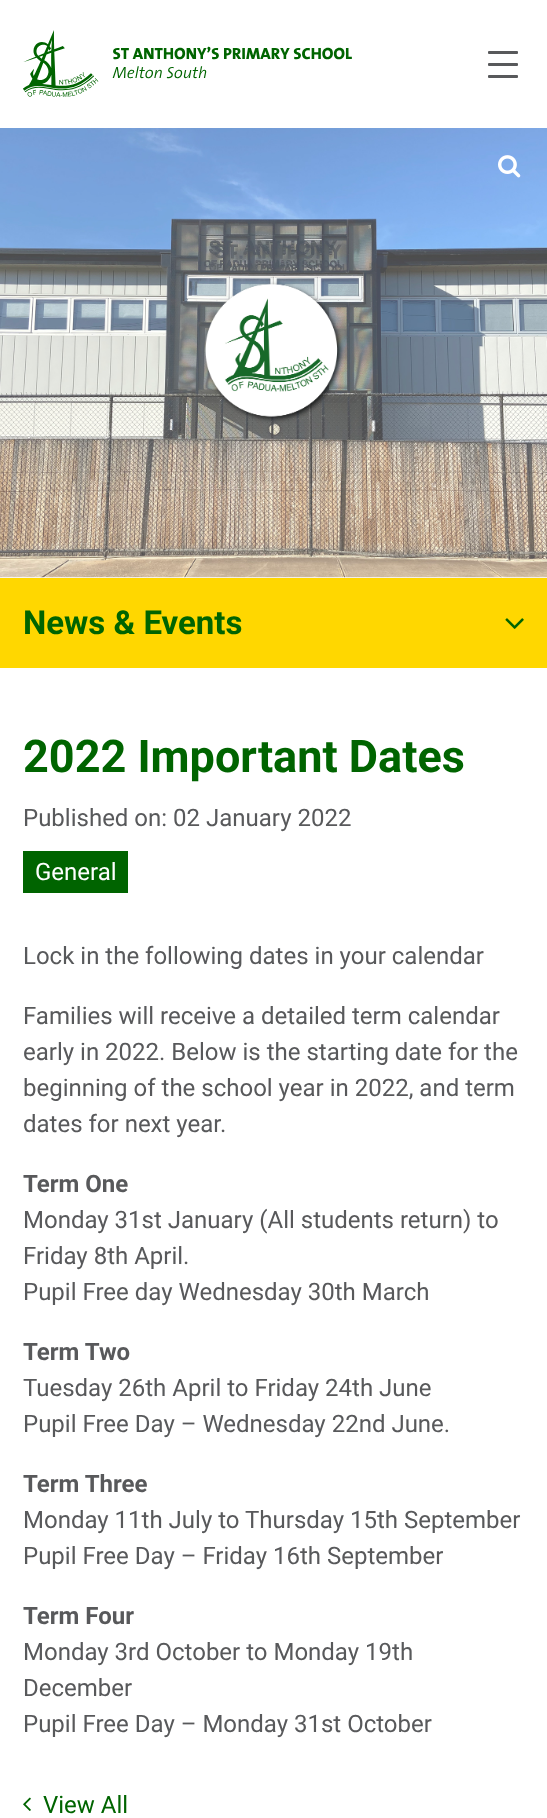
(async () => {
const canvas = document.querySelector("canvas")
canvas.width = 547
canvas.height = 1818
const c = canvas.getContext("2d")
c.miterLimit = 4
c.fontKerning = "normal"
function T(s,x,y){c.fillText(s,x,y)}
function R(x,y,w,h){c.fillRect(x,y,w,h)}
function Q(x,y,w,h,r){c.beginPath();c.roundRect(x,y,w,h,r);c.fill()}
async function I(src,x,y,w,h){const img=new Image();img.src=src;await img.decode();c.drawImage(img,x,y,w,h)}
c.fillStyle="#fff"
R(0,0,547,1818)
await I("1.png",23,30,329,67)
c.fillStyle="#58595b"
Q(488,63,30,3,1)
Q(488,51,30,3,1)
Q(488,75,30,3,1)
await I("3.png",0,128,547,450)
await I("2.png",498,155,23,23)
c.fillStyle="#ffd700"
R(0,578,547,90)
c.font="bold 33px Roboto"
c.fillStyle="#006400"
T("News & Events",23,634)
await I("4.png",505,618,19,11)
c.font="bold 45px Roboto"
T("2022 Important Dates",23,772)
c.font="24px Roboto"
c.fillStyle="#58595b"
T("Published on: 02 January 2022",23,826)
c.fillStyle="#006400"
R(23,851,105,42)
c.fillStyle="#fff"
T("General",35,880)
c.fillStyle="#58595b"
T("Lock in the following dates in your calendar",23,964)
T("Families will receive a detailed term calendar",23,1024)
T("early in 2022. Below is the starting date for the",23,1060)
T("beginning of the school year in 2022, and term",23,1096)
T("dates for next year.",23,1132)
c.font="bold 24px Roboto"
T("Term One",23,1192)
c.font="24px Roboto"
T("Monday 31st January (All students return) to",23,1228)
T("Friday 8th April.",23,1264)
T("Pupil Free day Wednesday 30th March",23,1300)
c.font="bold 24px Roboto"
T("Term Two",23,1360)
c.font="24px Roboto"
T("Tuesday 26th April to Friday 24th June",23,1396)
T("Pupil Free Day – Wednesday 22nd June.",23,1432)
c.font="bold 24px Roboto"
T("Term Three",23,1492)
c.font="24px Roboto"
T("Monday 11th July to Thursday 15th September",23,1528)
T("Pupil Free Day – Friday 16th September",23,1564)
c.font="bold 24px Roboto"
T("Term Four",23,1624)
c.font="24px Roboto"
T("Monday 3rd October to Monday 19th",23,1660)
T("December",23,1696)
T("Pupil Free Day – Monday 31st October",23,1732)
await I("5.png",23,1797,8,14)
c.fillStyle="#006400"
T("View All",43,1813)
})()
